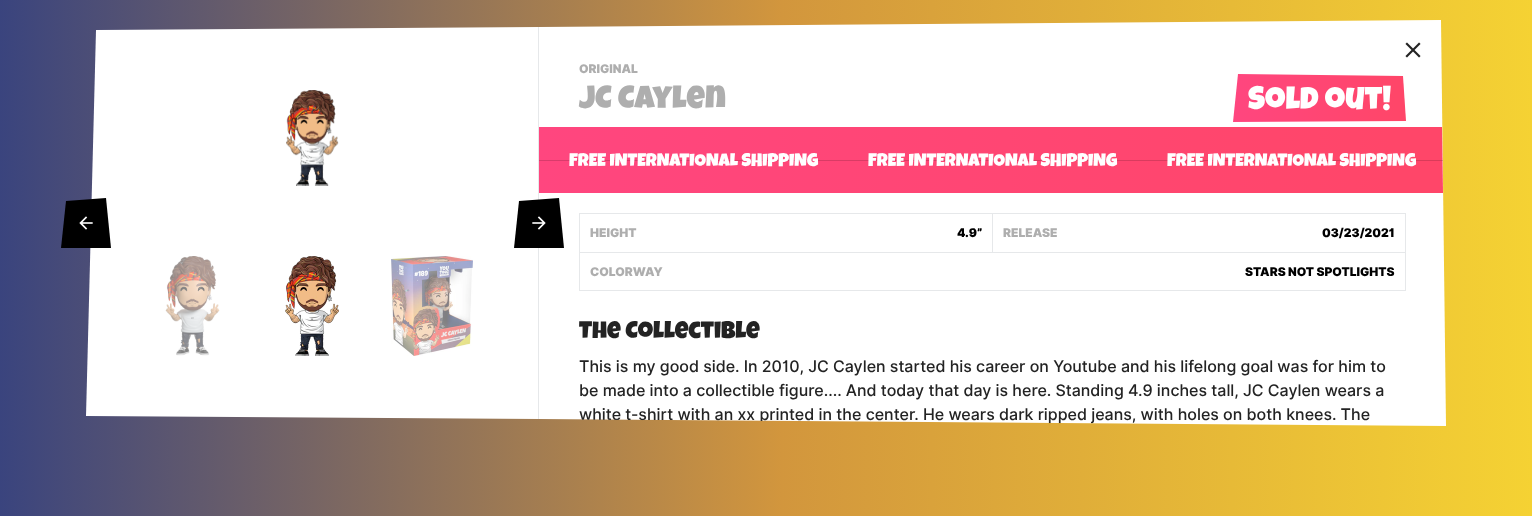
(async () => {
const canvas = document.querySelector("canvas")
canvas.width = 1532
canvas.height = 516
const c = canvas.getContext("2d")
c.miterLimit = 4
c.fontKerning = "normal"
function T(s,x,y){c.fillText(s,x,y)}
function R(x,y,w,h){c.fillRect(x,y,w,h)}
async function I(src,x,y,w,h){const img=new Image();img.src=src;await img.decode();c.drawImage(img,x,y,w,h)}
let gradient, path
c.fillStyle="#fff"
R(0,0,1532,516)
gradient = c.createLinearGradient(0,258,1532,258)
gradient.addColorStop(0,"#3a447e")
gradient.addColorStop(.51,"#d2963d")
gradient.addColorStop(1,"#f5d233")
c.fillStyle = gradient
R(0,0,1532,516)
c.fillStyle="#fff"
path = new Path2D("M539 27l902-7l5 406l-907-7z")
c.fill(path)
await I("1.png",1405,42,16,16)
path = new Path2D("M96 30l443-3v392l-453-3z")
c.fill(path)
c.fillStyle="#000"
path = new Path2D("M66 201l-5 47h50l-5-50z")
c.fill(path)
await I("2.png",79,216,14,14)
c.fillStyle="#e6e8ea"
R(538,27,1,392)
c.fillStyle="#000"
path = new Path2D("M519 201l-5 47h50l-5-50z")
c.fill(path)
await I("3.png",532,216,14,14)
await I("4.png",286,90,53,96)
await I("5.png",165,256,55,100)
await I("6.png",285,256,54,100)
await I("7.png",391,256,82,100)
c.font="900 12px Inter"
c.fillStyle="#aeaeae"
T("ORIGINAL",579,73)
c.font="32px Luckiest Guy"
T("JC Caylen",579,108)
gradient = c.createLinearGradient(1233,98,1406,98)
gradient.addColorStop(0,"#ff467f")
gradient.addColorStop(.94,"#ff4669")
c.fillStyle = gradient
path = new Path2D("M1238 74l-5 48l173-1l-3-45z")
c.fill(path)
c.fillStyle="#fff"
T("Sold out!",1248,109)
gradient = c.createLinearGradient(539,160,1446,160)
gradient.addColorStop(0,"#ff467f")
gradient.addColorStop(.94,"#ff4669")
c.fillStyle = gradient
path = new Path2D("M539 127h903l1 66h-904z")
c.fill(path)
c.fillStyle="#00000026"
R(539,160,904,1)
c.font="18px Luckiest Guy"
c.fillStyle="#fff"
T("FREE INTERNATIONAL SHIPPING",569,166)
T("FREE INTERNATIONAL SHIPPING",868,166)
T("FREE INTERNATIONAL SHIPPING",1167,166)
c.fillStyle="#e6e8ea"
R(579,213,827,1)
R(579,213,1,78)
R(992,214,1,39)
R(580,252,413,1)
c.font="900 12px Inter"
c.fillStyle="#aeaeae"
T("HEIGHT",590,237)
c.fillStyle="#000"
T("4.9”",957,237)
c.fillStyle="#e6e8ea"
R(1405,214,1,77)
R(993,252,413,1)
c.fillStyle="#aeaeae"
T("RELEASE",1003,237)
c.fillStyle="#000"
T("03/23/2021",1322,237)
c.fillStyle="#e6e8ea"
R(580,290,826,1)
c.fillStyle="#aeaeae"
T("COLORWAY",590,276)
c.fillStyle="#000"
T("STARS NOT SPOTLIGHTS",1245,276)
c.font="24px Luckiest Guy"
c.fillStyle="#232323"
T("The Collectible",579,338)
c.font="500 16px Inter"
T("This is my good side. In 2010, JC Caylen started his career on Youtube and his lifelong goal was for him to",579,372)
T("be made into a collectible figure.... And today that day is here. Standing 4.9 inches tall, JC Caylen wears a",579,396)
c.save()
path = new Path2D("M96 30l1345-10l5 406l-1360-10z")
c.clip(path)
T("white t-shirt with an xx printed in the center. He wears dark ripped jeans, with holes on both knees. The",579,420)
c.restore()
})()
